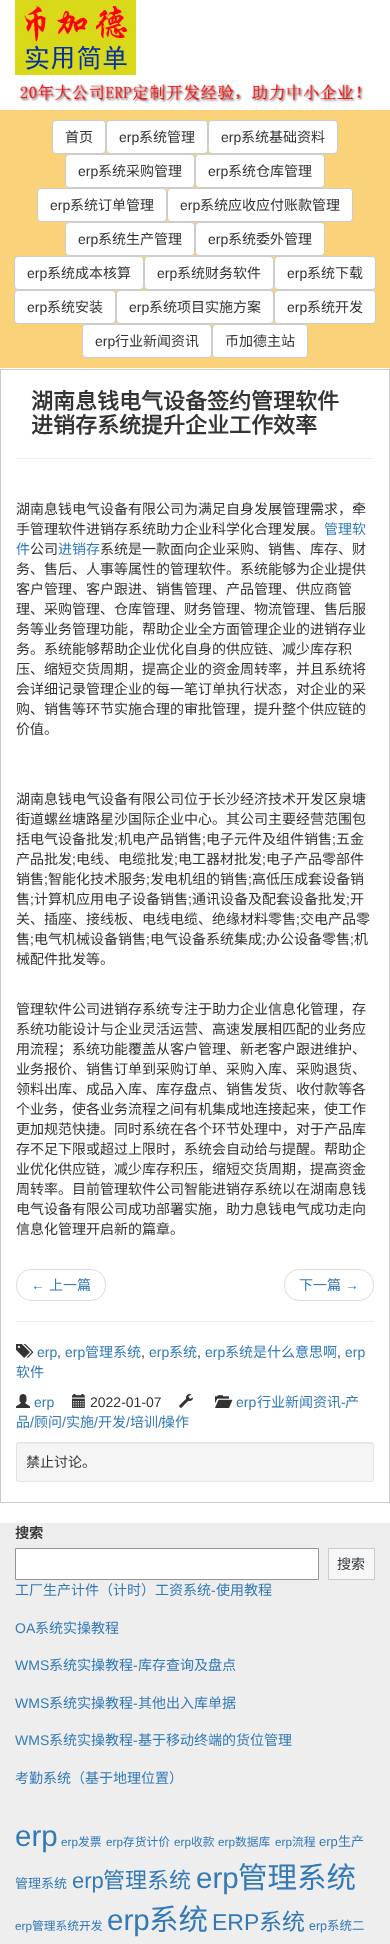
(async () => {
const canvas = document.querySelector("canvas")
canvas.width = 390
canvas.height = 1944
const c = canvas.getContext("2d")
c.miterLimit = 4
c.fontKerning = "normal"
function T(s,x,y){c.fillText(s,x,y)}
function R(x,y,w,h){c.fillRect(x,y,w,h)}
function Q(x,y,w,h,r){c.beginPath();c.roundRect(x,y,w,h,r);c.fill()}
async function I(src,x,y,w,h){const img=new Image();img.src=src;await img.decode();c.drawImage(img,x,y,w,h)}
let path
c.fillStyle="#fff"
R(0,0,390,1944)
await I("1.png",15,0,121,75)
await I("2.png",19,82,344,21)
c.fillStyle="#f9d27a"
R(0,110,390,258)
c.fillStyle="#fff"
c.beginPath()
c.roundRect(52.5,120.5,53,33,3.5)
c.fill()
c.strokeStyle="#ccc"
c.stroke()
c.font="14px Noto Sans CJK SC"
c.fillStyle="#333"
T("首页",65,142)
c.fillStyle="#fff"
c.beginPath()
c.roundRect(106.5,120.5,101,33,3.5)
c.fill()
c.stroke()
c.font="14px Liberation Sans"
c.fillStyle="#333"
T("erp",119,142)
c.font="14px Noto Sans CJK SC"
T("系统管理",139,142)
c.fillStyle="#fff"
c.beginPath()
c.roundRect(208.5,120.5,129,33,3.5)
c.fill()
c.stroke()
c.font="14px Liberation Sans"
c.fillStyle="#333"
T("erp",221,142)
c.font="14px Noto Sans CJK SC"
T("系统基础资料",241,142)
c.fillStyle="#fff"
c.beginPath()
c.roundRect(65.5,154.5,129,33,3.5)
c.fill()
c.stroke()
c.font="14px Liberation Sans"
c.fillStyle="#333"
T("erp",78,176)
c.font="14px Noto Sans CJK SC"
T("系统采购管理",98,176)
c.fillStyle="#fff"
c.beginPath()
c.roundRect(195.5,154.5,129,33,3.5)
c.fill()
c.stroke()
c.font="14px Liberation Sans"
c.fillStyle="#333"
T("erp",208,176)
c.font="14px Noto Sans CJK SC"
T("系统仓库管理",228,176)
c.fillStyle="#fff"
c.beginPath()
c.roundRect(37.5,188.5,129,33,3.5)
c.fill()
c.stroke()
c.font="14px Liberation Sans"
c.fillStyle="#333"
T("erp",50,210)
c.font="14px Noto Sans CJK SC"
T("系统订单管理",70,210)
c.fillStyle="#fff"
c.beginPath()
c.roundRect(167.5,188.5,185,33,3.5)
c.fill()
c.stroke()
c.font="14px Liberation Sans"
c.fillStyle="#333"
T("erp",180,210)
c.font="14px Noto Sans CJK SC"
T("系统应收应付账款管理",200,210)
c.fillStyle="#fff"
c.beginPath()
c.roundRect(65.5,222.5,129,33,3.5)
c.fill()
c.stroke()
c.font="14px Liberation Sans"
c.fillStyle="#333"
T("erp",78,244)
c.font="14px Noto Sans CJK SC"
T("系统生产管理",98,244)
c.fillStyle="#fff"
c.beginPath()
c.roundRect(195.5,222.5,129,33,3.5)
c.fill()
c.stroke()
c.font="14px Liberation Sans"
c.fillStyle="#333"
T("erp",208,244)
c.font="14px Noto Sans CJK SC"
T("系统委外管理",228,244)
c.fillStyle="#fff"
c.beginPath()
c.roundRect(14.5,256.5,129,33,3.5)
c.fill()
c.stroke()
c.font="14px Liberation Sans"
c.fillStyle="#333"
T("erp",27,278)
c.font="14px Noto Sans CJK SC"
T("系统成本核算",47,278)
c.fillStyle="#fff"
c.beginPath()
c.roundRect(144.5,256.5,129,33,3.5)
c.fill()
c.stroke()
c.font="14px Liberation Sans"
c.fillStyle="#333"
T("erp",157,278)
c.font="14px Noto Sans CJK SC"
T("系统财务软件",177,278)
c.fillStyle="#fff"
c.beginPath()
c.roundRect(274.5,256.5,101,33,3.5)
c.fill()
c.stroke()
c.font="14px Liberation Sans"
c.fillStyle="#333"
T("erp",287,278)
c.font="14px Noto Sans CJK SC"
T("系统下载",307,278)
c.fillStyle="#fff"
c.beginPath()
c.roundRect(14.5,290.5,101,33,3.5)
c.fill()
c.stroke()
c.font="14px Liberation Sans"
c.fillStyle="#333"
T("erp",27,312)
c.font="14px Noto Sans CJK SC"
T("系统安装",47,312)
c.fillStyle="#fff"
c.beginPath()
c.roundRect(116.5,290.5,157,33,3.5)
c.fill()
c.stroke()
c.font="14px Liberation Sans"
c.fillStyle="#333"
T("erp",129,312)
c.font="14px Noto Sans CJK SC"
T("系统项目实施方案",149,312)
c.fillStyle="#fff"
c.beginPath()
c.roundRect(274.5,290.5,101,33,3.5)
c.fill()
c.stroke()
c.font="14px Liberation Sans"
c.fillStyle="#333"
T("erp",287,312)
c.font="14px Noto Sans CJK SC"
T("系统开发",307,312)
c.fillStyle="#fff"
c.beginPath()
c.roundRect(82.5,324.5,129,33,3.5)
c.fill()
c.stroke()
c.font="14px Liberation Sans"
c.fillStyle="#333"
T("erp",95,346)
c.font="14px Noto Sans CJK SC"
T("行业新闻资讯",115,346)
c.fillStyle="#fff"
c.beginPath()
c.roundRect(212.5,324.5,95,33,3.5)
c.fill()
c.stroke()
c.fillStyle="#333"
T("币加德主站",225,346)
c.strokeRect(.5,369.5,389,1133)
c.font="bold 22px Noto Sans CJK SC"
T("湖南息钱电气设备签约管理软件",31,409)
T("进销存系统提升企业工作效率",31,433)
c.fillStyle="#eee"
R(16,458,358,1)
c.font="14px Noto Sans CJK SC"
c.fillStyle="#333"
T("湖南息钱电气设备有限公司为满足自身发展管理需求，牵",16,514)
T("手管理软件进销存系统助力企业科学化合理发展。",16,534)
c.fillStyle="#337ab7"
T("管理软",324,534)
T("件",16,554)
c.fillStyle="#333"
T("公司",30,554)
c.fillStyle="#337ab7"
T("进销存",58,554)
c.fillStyle="#333"
T("系统是一款面向企业采购、销售、库存、财",100,554)
T("务、售后、人事等属性的管理软件。系统能够为企业提供",16,574)
T("客户管理、客户跟进、销售管理、产品管理、供应商管",16,594)
T("理、采购管理、仓库管理、财务管理、物流管理、售后服",16,614)
T("务等业务管理功能，帮助企业全方面管理企业的进销存业",16,634)
T("务。系统能够帮助企业优化自身的供应链、减少库存积",16,654)
T("压、缩短交货周期，提高企业的资金周转率，并且系统将",16,674)
T("会详细记录管理企业的每一笔订单执行状态，对企业的采",16,694)
T("购、销售等环节实施合理的审批管理，提升整个供应链的",16,714)
T("价值。",16,734)
T("湖南息钱电气设备有限公司位于长沙经济技术开发区泉塘",16,804)
T("街道螺丝塘路星沙国际企业中心。其公司主要经营范围包",16,824)
T("括电气设备批发",16,844)
c.font="14px Liberation Sans"
T(";",114,844)
c.font="14px Noto Sans CJK SC"
T("机电产品销售",118,844)
c.font="14px Liberation Sans"
T(";",202,844)
c.font="14px Noto Sans CJK SC"
T("电子元件及组件销售",206,844)
c.font="14px Liberation Sans"
T(";",332,844)
c.font="14px Noto Sans CJK SC"
T("五金",336,844)
T("产品批发",16,864)
c.font="14px Liberation Sans"
T(";",72,864)
c.font="14px Noto Sans CJK SC"
T("电线、电缆批发",76,864)
c.font="14px Liberation Sans"
T(";",174,864)
c.font="14px Noto Sans CJK SC"
T("电工器材批发",178,864)
c.font="14px Liberation Sans"
T(";",262,864)
c.font="14px Noto Sans CJK SC"
T("电子产品零部件",266,864)
T("销售",16,884)
c.font="14px Liberation Sans"
T(";",44,884)
c.font="14px Noto Sans CJK SC"
T("智能化技术服务",48,884)
c.font="14px Liberation Sans"
T(";",146,884)
c.font="14px Noto Sans CJK SC"
T("发电机组的销售",150,884)
c.font="14px Liberation Sans"
T(";",248,884)
c.font="14px Noto Sans CJK SC"
T("高低压成套设备销",252,884)
T("售",16,904)
c.font="14px Liberation Sans"
T(";",30,904)
c.font="14px Noto Sans CJK SC"
T("计算机应用电子设备销售",34,904)
c.font="14px Liberation Sans"
T(";",188,904)
c.font="14px Noto Sans CJK SC"
T("通讯设备及配套设备批发",192,904)
c.font="14px Liberation Sans"
T(";",346,904)
c.font="14px Noto Sans CJK SC"
T("开",350,904)
T("关、插座、接线板、电线电缆、绝缘材料零售",16,924)
c.font="14px Liberation Sans"
T(";",296,924)
c.font="14px Noto Sans CJK SC"
T("交电产品零",300,924)
T("售",16,944)
c.font="14px Liberation Sans"
T(";",30,944)
c.font="14px Noto Sans CJK SC"
T("电气机械设备销售",34,944)
c.font="14px Liberation Sans"
T(";",146,944)
c.font="14px Noto Sans CJK SC"
T("电气设备系统集成",150,944)
c.font="14px Liberation Sans"
T(";",262,944)
c.font="14px Noto Sans CJK SC"
T("办公设备零售",266,944)
c.font="14px Liberation Sans"
T(";",350,944)
c.font="14px Noto Sans CJK SC"
T("机",354,944)
T("械配件批发等。",16,964)
T("管理软件公司进销存系统专注于助力企业信息化管理，存",16,1014)
T("系统功能设计与企业灵活运营、高速发展相匹配的业务应",16,1034)
T("用流程；系统功能覆盖从客户管理、新老客户跟进维护、",16,1054)
T("业务报价、销售订单到采购订单、采购入库、采购退货、",16,1074)
T("领料出库、成品入库、库存盘点、销售发货、收付款等各",16,1094)
T("个业务，使各业务流程之间有机集成地连接起来，使工作",16,1114)
T("更加规范快捷。同时系统在各个环节处理中，对于产品库",16,1134)
T("存不足下限或超过上限时，系统会自动给与提醒。帮助企",16,1154)
T("业优化供应链，减少库存积压，缩短交货周期，提高资金",16,1174)
T("周转率。目前管理软件公司智能进销存系统以在湖南息钱",16,1194)
T("电气设备有限公司成功部署实施，助力息钱电气成功走向",16,1214)
T("信息化管理开启新的篇章。",16,1234)
c.beginPath()
c.roundRect(16.5,1269.5,89,31,14.5)
c.strokeStyle="#ddd"
c.stroke()
c.font="14px Liberation Sans"
c.fillStyle="#337ab7"
T("←",31,1290)
c.font="14px Noto Sans CJK SC"
T("上一篇",49,1290)
c.beginPath()
c.roundRect(284.5,1269.5,89,31,14.5)
c.stroke()
T("下一篇",299,1290)
c.font="14px Liberation Sans"
T("→",345,1290)
c.fillStyle="#eee"
R(16,1321,358,1)
await I("3.png",16,1344,18,14)
c.fillStyle="#337ab7"
T("erp",37,1357)
c.fillStyle="#333"
T(",",57,1357)
c.fillStyle="#337ab7"
T("erp",65,1357)
c.font="14px Noto Sans CJK SC"
T("管理系统",85,1357)
c.font="14px Liberation Sans"
c.fillStyle="#333"
T(",",141,1357)
c.fillStyle="#337ab7"
T("erp",149,1357)
c.font="14px Noto Sans CJK SC"
T("系统",169,1357)
c.font="14px Liberation Sans"
c.fillStyle="#333"
T(",",197,1357)
c.fillStyle="#337ab7"
T("erp",205,1357)
c.font="14px Noto Sans CJK SC"
T("系统是什么意思啊",225,1357)
c.font="14px Liberation Sans"
c.fillStyle="#333"
T(",",337,1357)
c.fillStyle="#337ab7"
T("erp",345,1357)
c.font="14px Noto Sans CJK SC"
T("软件",16,1377)
await I("4.png",16,1394,14,14)
c.font="14px Liberation Sans"
T("erp",34,1407)
await I("5.png",72,1394,13,14)
c.fillStyle="#333"
T("2022-01-07",90,1407)
await I("6.png",179,1394,14,14)
await I("7.png",215,1395,18,13)
c.fillStyle="#337ab7"
T("erp",236,1407)
c.font="14px Noto Sans CJK SC"
T("行业新闻资讯",257,1407)
c.font="14px Liberation Sans"
T("-",341,1407)
c.font="14px Noto Sans CJK SC"
T("产",345,1407)
T("品",16,1427)
c.font="14px Liberation Sans"
T("/",30,1427)
c.font="14px Noto Sans CJK SC"
T("顾问",34,1427)
c.font="14px Liberation Sans"
T("/",62,1427)
c.font="14px Noto Sans CJK SC"
T("实施",66,1427)
c.font="14px Liberation Sans"
T("/",94,1427)
c.font="14px Noto Sans CJK SC"
T("开发",98,1427)
c.font="14px Liberation Sans"
T("/",126,1427)
c.font="14px Noto Sans CJK SC"
T("培训",130,1427)
c.font="14px Liberation Sans"
T("/",158,1427)
c.font="14px Noto Sans CJK SC"
T("操作",161,1427)
c.fillStyle="#f5f5f5"
Q(16,1442,358,40,3)
c.fillStyle="#e9e9e9"
path = new Path2D("M19 1444h352c1 0 2 1 2 2c0-1 0-3-2-3h-352c-2 0-2 2-2 3c0-1 1-2 2-2z")
c.fill(path)
c.beginPath()
c.roundRect(16.5,1442.5,357,39,2.5)
c.strokeStyle="#e3e3e3"
c.stroke()
c.fillStyle="#333"
T("禁止讨论。",26,1467)
c.fillStyle="#eee"
R(0,1523,390,421)
c.font="bold 14px Noto Sans CJK SC"
c.fillStyle="#333"
T("搜索",15,1538)
c.fillStyle="#fff"
c.beginPath()
c.rect(15.5,1548.5,303,31)
c.fill()
c.strokeStyle="#949494"
c.stroke()
c.fillStyle="#f7f7f7"
c.beginPath()
c.rect(328.5,1548.5,46,31)
c.fill()
c.strokeStyle="#ccc"
c.stroke()
c.font="14px Noto Sans CJK SC"
c.fillStyle="#32373c"
T("搜索",337,1569)
c.fillStyle="#337ab7"
T("工厂生产计件（计时）工资系统",15,1595)
c.font="14px Liberation Sans"
T("-",211,1595)
c.font="14px Noto Sans CJK SC"
T("使用教程",216,1595)
c.font="14px Liberation Sans"
T("OA",15,1633)
c.font="14px Noto Sans CJK SC"
T("系统实操教程",35,1633)
c.font="14px Liberation Sans"
T("WMS",15,1670)
c.font="14px Noto Sans CJK SC"
T("系统实操教程",49,1670)
c.font="14px Liberation Sans"
T("-",133,1670)
c.font="14px Noto Sans CJK SC"
T("库存查询及盘点",138,1670)
c.font="14px Liberation Sans"
T("WMS",15,1708)
c.font="14px Noto Sans CJK SC"
T("系统实操教程",49,1708)
c.font="14px Liberation Sans"
T("-",133,1708)
c.font="14px Noto Sans CJK SC"
T("其他出入库单据",138,1708)
c.font="14px Liberation Sans"
T("WMS",15,1745)
c.font="14px Noto Sans CJK SC"
T("系统实操教程",49,1745)
c.font="14px Liberation Sans"
T("-",133,1745)
c.font="14px Noto Sans CJK SC"
T("基于移动终端的货位管理",138,1745)
T("考勤系统（基于地理位置）",15,1783)
c.font="29.5px Liberation Sans"
T("erp",15,1846)
c.font="11.75px Liberation Sans"
T("erp",61,1846)
c.font="11.75px Noto Sans CJK SC"
T("发票",78,1846)
c.font="11.75px Liberation Sans"
T("erp",106,1846)
c.font="11.75px Noto Sans CJK SC"
T("存货计价",123,1846)
c.font="11.75px Liberation Sans"
T("erp",174,1846)
c.font="11.75px Noto Sans CJK SC"
T("收款",191,1846)
c.font="11.75px Liberation Sans"
T("erp",218,1846)
c.font="11.75px Noto Sans CJK SC"
T("数据库",235,1846)
c.font="11.75px Liberation Sans"
T("erp",275,1846)
c.font="11.75px Noto Sans CJK SC"
T("流程",292,1846)
c.font="13px Liberation Sans"
T("erp",319,1846)
c.font="13px Noto Sans CJK SC"
T("生产",338,1846)
T("管理系统",15,1888)
c.font="22px Liberation Sans"
T("erp",72,1888)
c.font="22px Noto Sans CJK SC"
T("管理系统",103,1888)
c.font="29.5px Liberation Sans"
T("erp",196,1888)
c.font="29.5px Noto Sans CJK SC"
T("管理系统",238,1888)
c.font="11.75px Liberation Sans"
T("erp",15,1930)
c.font="11.75px Noto Sans CJK SC"
T("管理系统开发",32,1930)
c.font="29.5px Liberation Sans"
T("erp",107,1930)
c.font="29.5px Noto Sans CJK SC"
T("系统",149,1930)
c.font="23px Liberation Sans"
T("ERP",212,1930)
c.font="23px Noto Sans CJK SC"
T("系统",259,1930)
c.font="12.5px Liberation Sans"
T("erp",309,1930)
c.font="12.5px Noto Sans CJK SC"
T("系统二",327,1930)
})()
